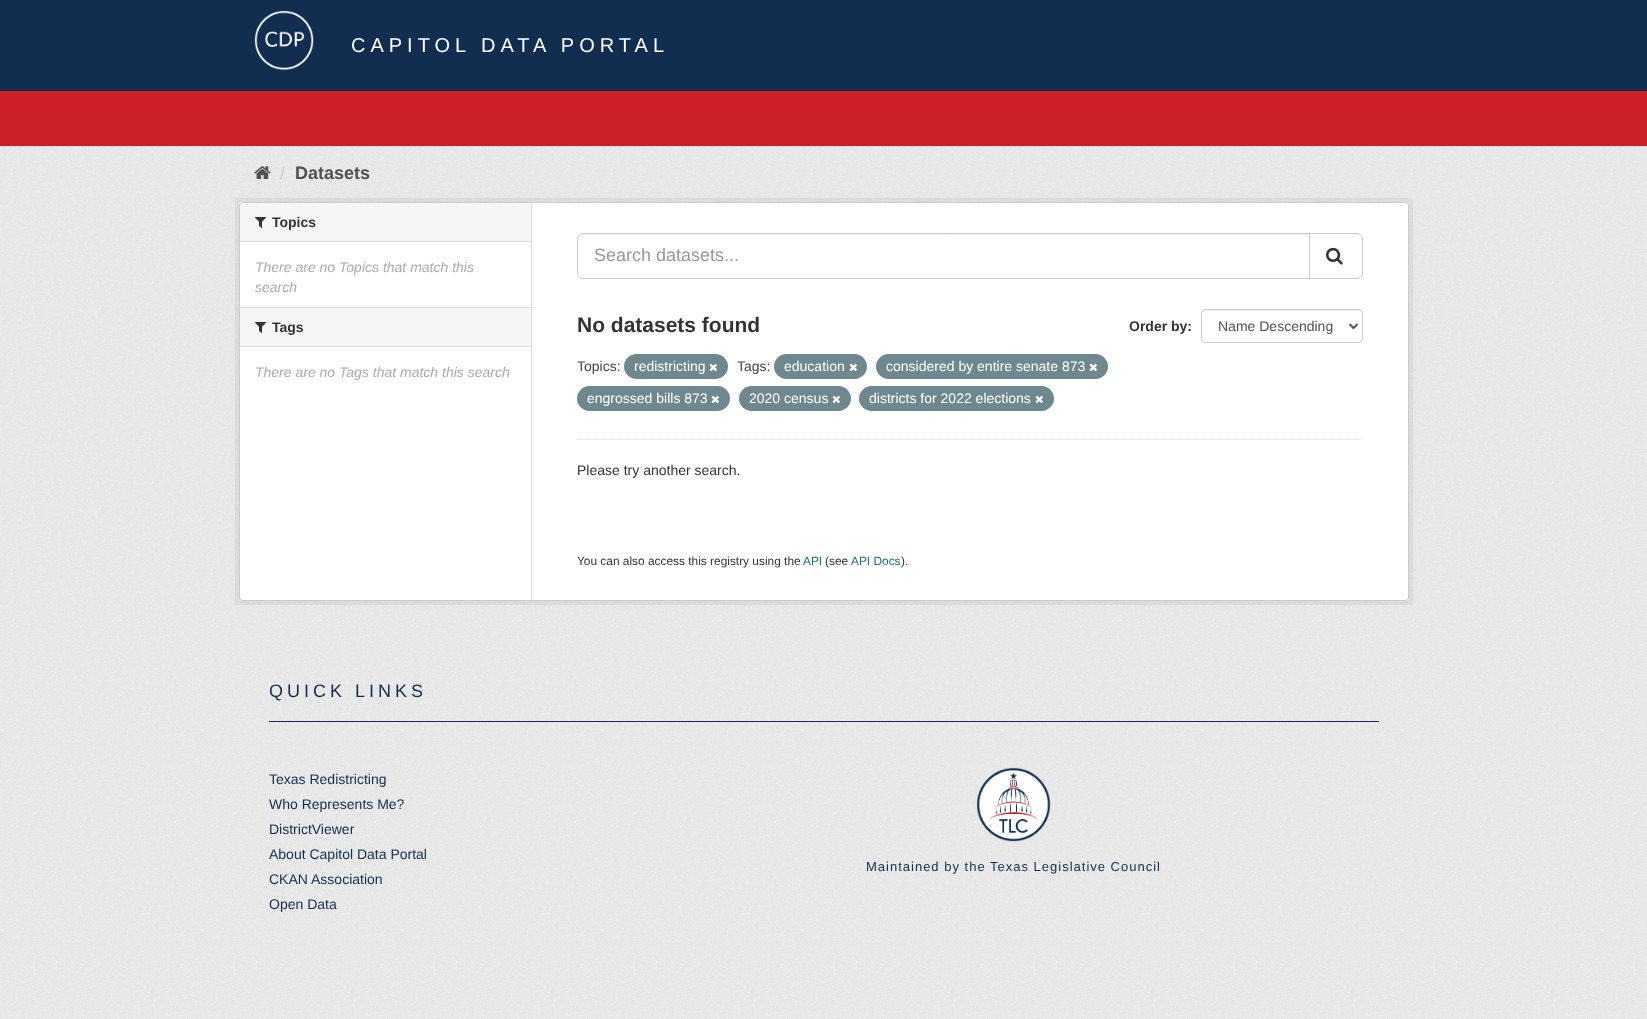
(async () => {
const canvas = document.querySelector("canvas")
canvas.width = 1647
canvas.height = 1019
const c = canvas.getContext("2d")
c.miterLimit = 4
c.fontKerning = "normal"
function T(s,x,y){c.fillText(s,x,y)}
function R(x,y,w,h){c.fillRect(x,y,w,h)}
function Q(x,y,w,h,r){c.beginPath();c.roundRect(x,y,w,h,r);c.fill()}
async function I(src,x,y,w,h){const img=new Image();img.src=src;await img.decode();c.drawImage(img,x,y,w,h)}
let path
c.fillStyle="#eee"
R(0,0,1647,1019)
await I("1.png",0,962,1647,57)
c.fillStyle="#112e51"
R(0,0,1647,91)
await I("2.png",254,10,60,60)
c.letterSpacing="5px"
c.font="20px Liberation Sans"
c.fillStyle="#fff"
T("CAPITOL DATA PORTAL",351,52)
c.fillStyle="#cd2026"
R(0,91,1647,55)
await I("3.png",0,146,1647,475)
await I("4.png",254,166,17,13)
c.letterSpacing="0px"
c.font="18px Liberation Sans"
c.fillStyle="#ccc"
T("/",280,179)
c.font="bold 18px Liberation Sans"
c.fillStyle="#505050"
T("Datasets",295,179)
c.strokeStyle="#0000000d"
c.lineWidth=4
c.strokeRect(237,200,1174,403)
c.fillStyle="#fff"
c.beginPath()
c.roundRect(239.5,202.5,1169,398,3.5)
c.fill()
c.strokeStyle="#ccc"
c.lineWidth=1
c.stroke()
c.fillStyle="#f6f6f6"
c.beginPath()
c.roundRect(240,203,291,39,[3,0,0,0])
c.fill()
c.fillStyle="#ddd"
R(240,241,291,1)
await I("5.png",255,217,11,11)
c.font="bold 14px Liberation Sans"
c.fillStyle="#333"
T("Topics",272,227)
c.font="italic 14px Liberation Sans"
c.fillStyle="#aaa"
T("There are no Topics that match this",255,272)
T("search",255,292)
c.fillStyle="#f6f6f6"
R(240,308,291,38)
c.fillStyle="#ddd"
R(240,307,291,1)
R(240,346,291,1)
await I("5.png",255,322,11,11)
c.font="bold 14px Liberation Sans"
c.fillStyle="#333"
T("Tags",272,332)
c.font="italic 14px Liberation Sans"
c.fillStyle="#aaa"
T("There are no Tags that match this search",255,377)
c.fillStyle="#ddd"
R(531,203,1,397)
path = new Path2D("M577 439.5h786")
c.strokeStyle="#ddd"
c.setLineDash([1,1])
c.stroke(path)
c.fillStyle="#ececec"
path = new Path2D("M583 235h726v-1h-726c-3 0-5 3-5 6c0-3 2-5 5-5z")
c.fill(path)
c.beginPath()
c.roundRect(577.5,233.5,732,45,[5.5,0,0,5.5])
c.strokeStyle="#ccc"
c.setLineDash([])
c.stroke()
c.font="18px Liberation Sans"
c.fillStyle="#999"
T("Search datasets...",594,261)
c.fillStyle="#fff"
c.beginPath()
c.roundRect(1309.5,233.5,53,45,[0,5.5,5.5,0])
c.fill()
c.stroke()
await I("6.png",1326,247,17,18)
c.font="bold 21px Liberation Sans"
c.fillStyle="#333"
T("No datasets found",577,332)
c.font="bold 14px Liberation Sans"
T("Order by:",1129,331)
c.fillStyle="#ececec"
path = new Path2D("M1205 311h154c2 0 3 1 3 3c0-2-1-4-3-4h-155c-2 0-2 2-2 4c0-2 1-3 3-3z")
c.fill(path)
c.beginPath()
c.roundRect(1201.5,309.5,161,33,3.5)
c.stroke()
path = new Path2D("M1349.5 324l4 4l4-4")
c.strokeStyle="#555"
c.lineWidth=2
c.stroke(path)
c.font="14px Liberation Sans"
c.fillStyle="#505050"
T("Name Descending",1218,331)
c.fillStyle="#444"
T("Topics:",577,371)
c.fillStyle="#6f8890"
Q(624,354,104,25,12.5)
c.fillStyle="#fff"
T("redistricting",634,371)
await I("7.png",709,363,8,8)
c.fillStyle="#444"
T("Tags:",737,371)
c.fillStyle="#6f8890"
Q(774,354,93,25,12.5)
c.fillStyle="#fff"
T("education",784,371)
await I("7.png",849,363,8,8)
c.fillStyle="#6f8890"
Q(876,354,232,25,12.5)
c.fillStyle="#fff"
T("considered by entire senate 873",886,371)
await I("7.png",1089,363,8,8)
c.fillStyle="#6f8890"
Q(577,386,153,25,12.5)
c.fillStyle="#fff"
T("engrossed bills 873",587,403)
await I("7.png",711,395,8,8)
c.fillStyle="#6f8890"
Q(739,386,112,25,12.5)
c.fillStyle="#fff"
T("2020 census",749,403)
await I("7.png",832,395,8,8)
c.fillStyle="#6f8890"
Q(859,386,195,25,12.5)
c.fillStyle="#fff"
T("districts for 2022 elections",869,403)
await I("7.png",1035,395,8,8)
c.fillStyle="#333"
T("Please try another search.",577,475)
c.font="11.9px Liberation Sans"
T("You can also access this registry using the",577,565)
c.fillStyle="#206b82"
T("API",803,565)
c.fillStyle="#333"
T("(see",825,565)
c.fillStyle="#206b82"
T("API Docs",851,565)
c.fillStyle="#333"
T(").",901,565)
await I("8.png",0,621,1647,341)
c.letterSpacing="4px"
c.font="18px Liberation Sans"
c.fillStyle="#112e51"
T("QUICK LINKS",269,697)
R(269,721,1110,1)
c.letterSpacing="0px"
c.font="14px Liberation Sans"
T("Texas Redistricting",269,784)
T("Who Represents Me?",269,809)
T("DistrictViewer",269,834)
T("About Capitol Data Portal",269,859)
T("CKAN Association",269,884)
T("Open Data",269,909)
await I("9.png",976,767,75,75)
c.letterSpacing="1px"
c.font="13px Liberation Sans"
T("Maintained by the Texas Legislative Council",866,871)
})()
